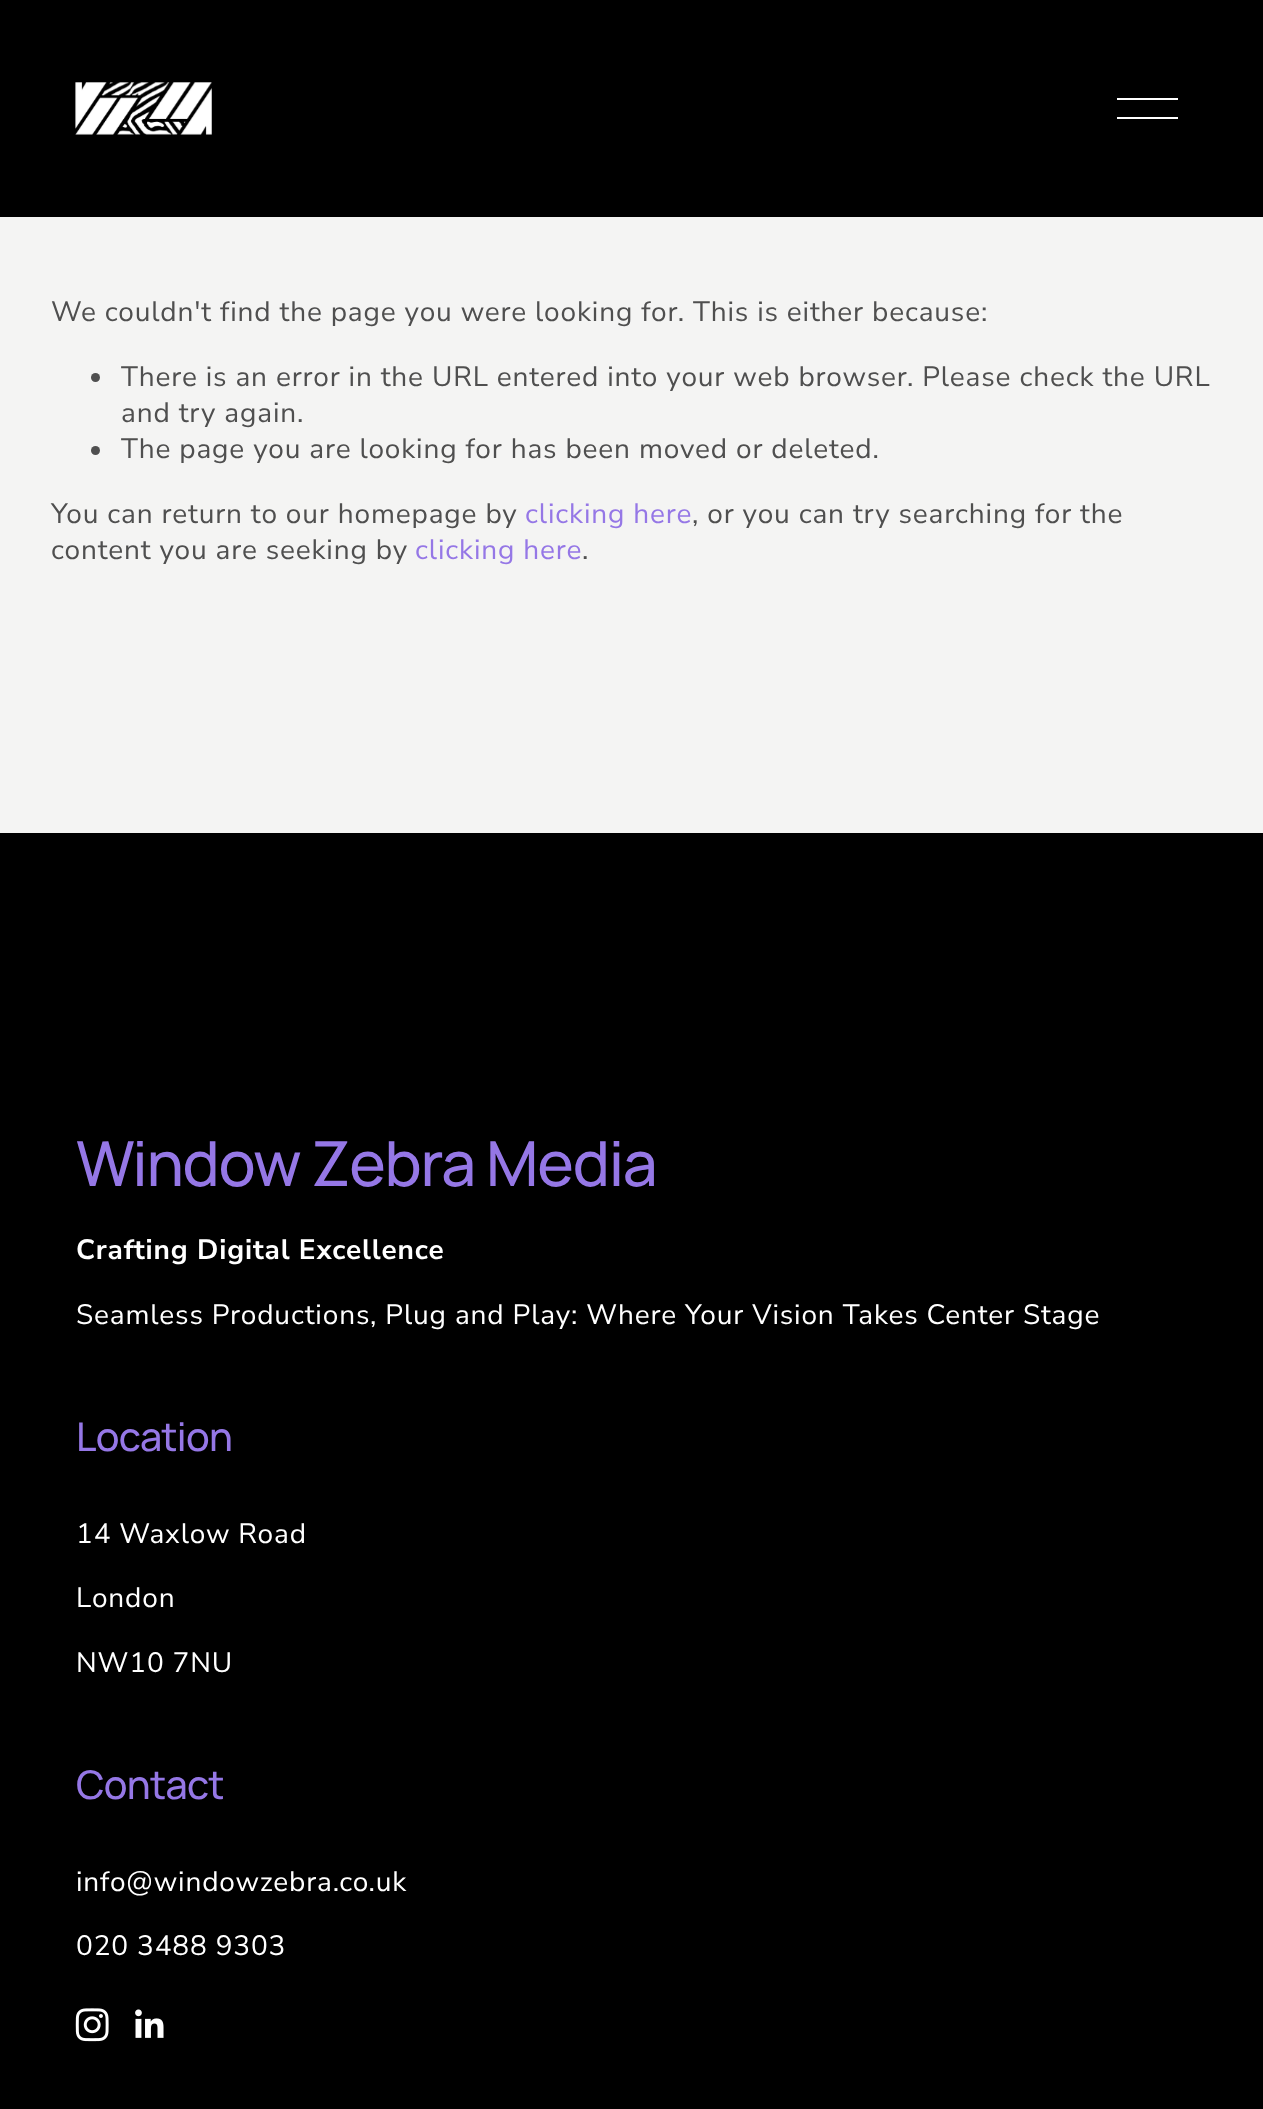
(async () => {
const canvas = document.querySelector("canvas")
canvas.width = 1263
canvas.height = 2109
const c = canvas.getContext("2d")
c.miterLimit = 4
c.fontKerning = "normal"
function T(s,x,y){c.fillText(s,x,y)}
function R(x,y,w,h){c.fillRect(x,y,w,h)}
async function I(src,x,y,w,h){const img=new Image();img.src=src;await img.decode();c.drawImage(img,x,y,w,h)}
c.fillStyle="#f4f4f3"
R(0,0,1263,2109)
c.fillStyle="#000"
R(0,0,1263,217)
await I("1.png",75,82,137,53)
c.fillStyle="#fff"
R(1117,98,61,2)
R(1117,117,61,2)
c.letterSpacing="0.85px"
c.font="28px Nunito Sans"
c.fillStyle="#4f4f4f"
T("We couldn't find the page you were looking for. This is either because:",51,321)
c.beginPath()
c.arc(95.5,377.5,4.5,0,7)
c.fill()
T("There is an error in the URL entered into your web browser. Please check the URL",121,386)
T("and try again.",121,422)
c.beginPath()
c.arc(95.5,450.5,4.5,0,7)
c.fill()
T("The page you are looking for has been moved or deleted.",121,458)
T("You can return to our homepage by",51,523)
c.fillStyle="#9577e6"
T("clicking here",525,523)
c.fillStyle="#4f4f4f"
T(", or you can try searching for the",692,523)
T("content you are seeking by",51,559)
c.fillStyle="#9577e6"
T("clicking here",415,559)
c.fillStyle="#4f4f4f"
T(".",582,559)
c.fillStyle="#000"
R(0,833,1263,1276)
c.letterSpacing="-1.25px"
c.font="500 62px Manrope"
c.fillStyle="#9577e6"
T("Window Zebra Media",76,1186)
c.letterSpacing="0.85px"
c.font="bold 28px Nunito Sans"
c.fillStyle="#fff"
T("Crafting Digital Excellence",76,1259)
c.font="28px Nunito Sans"
T("Seamless Productions, Plug and Play: Where Your Vision Takes Center Stage",76,1324)
c.letterSpacing="-0.75px"
c.font="500 39.5px Manrope"
c.fillStyle="#9577e6"
T("Location",76,1451)
c.letterSpacing="0.85px"
c.font="28px Nunito Sans"
c.fillStyle="#fff"
T("14 Waxlow Road",76,1543)
T("London",76,1607)
T("NW10 7NU",76,1672)
c.letterSpacing="-0.75px"
c.font="500 39.5px Manrope"
c.fillStyle="#9577e6"
T("Contact",76,1799)
c.letterSpacing="0.85px"
c.font="28px Nunito Sans"
c.fillStyle="#fff"
T("info@windowzebra.co.uk",76,1891)
T("020 3488 9303",76,1955)
await I("2.png",75,2008,34,34)
await I("3.png",135,2009,29,29)
})()
